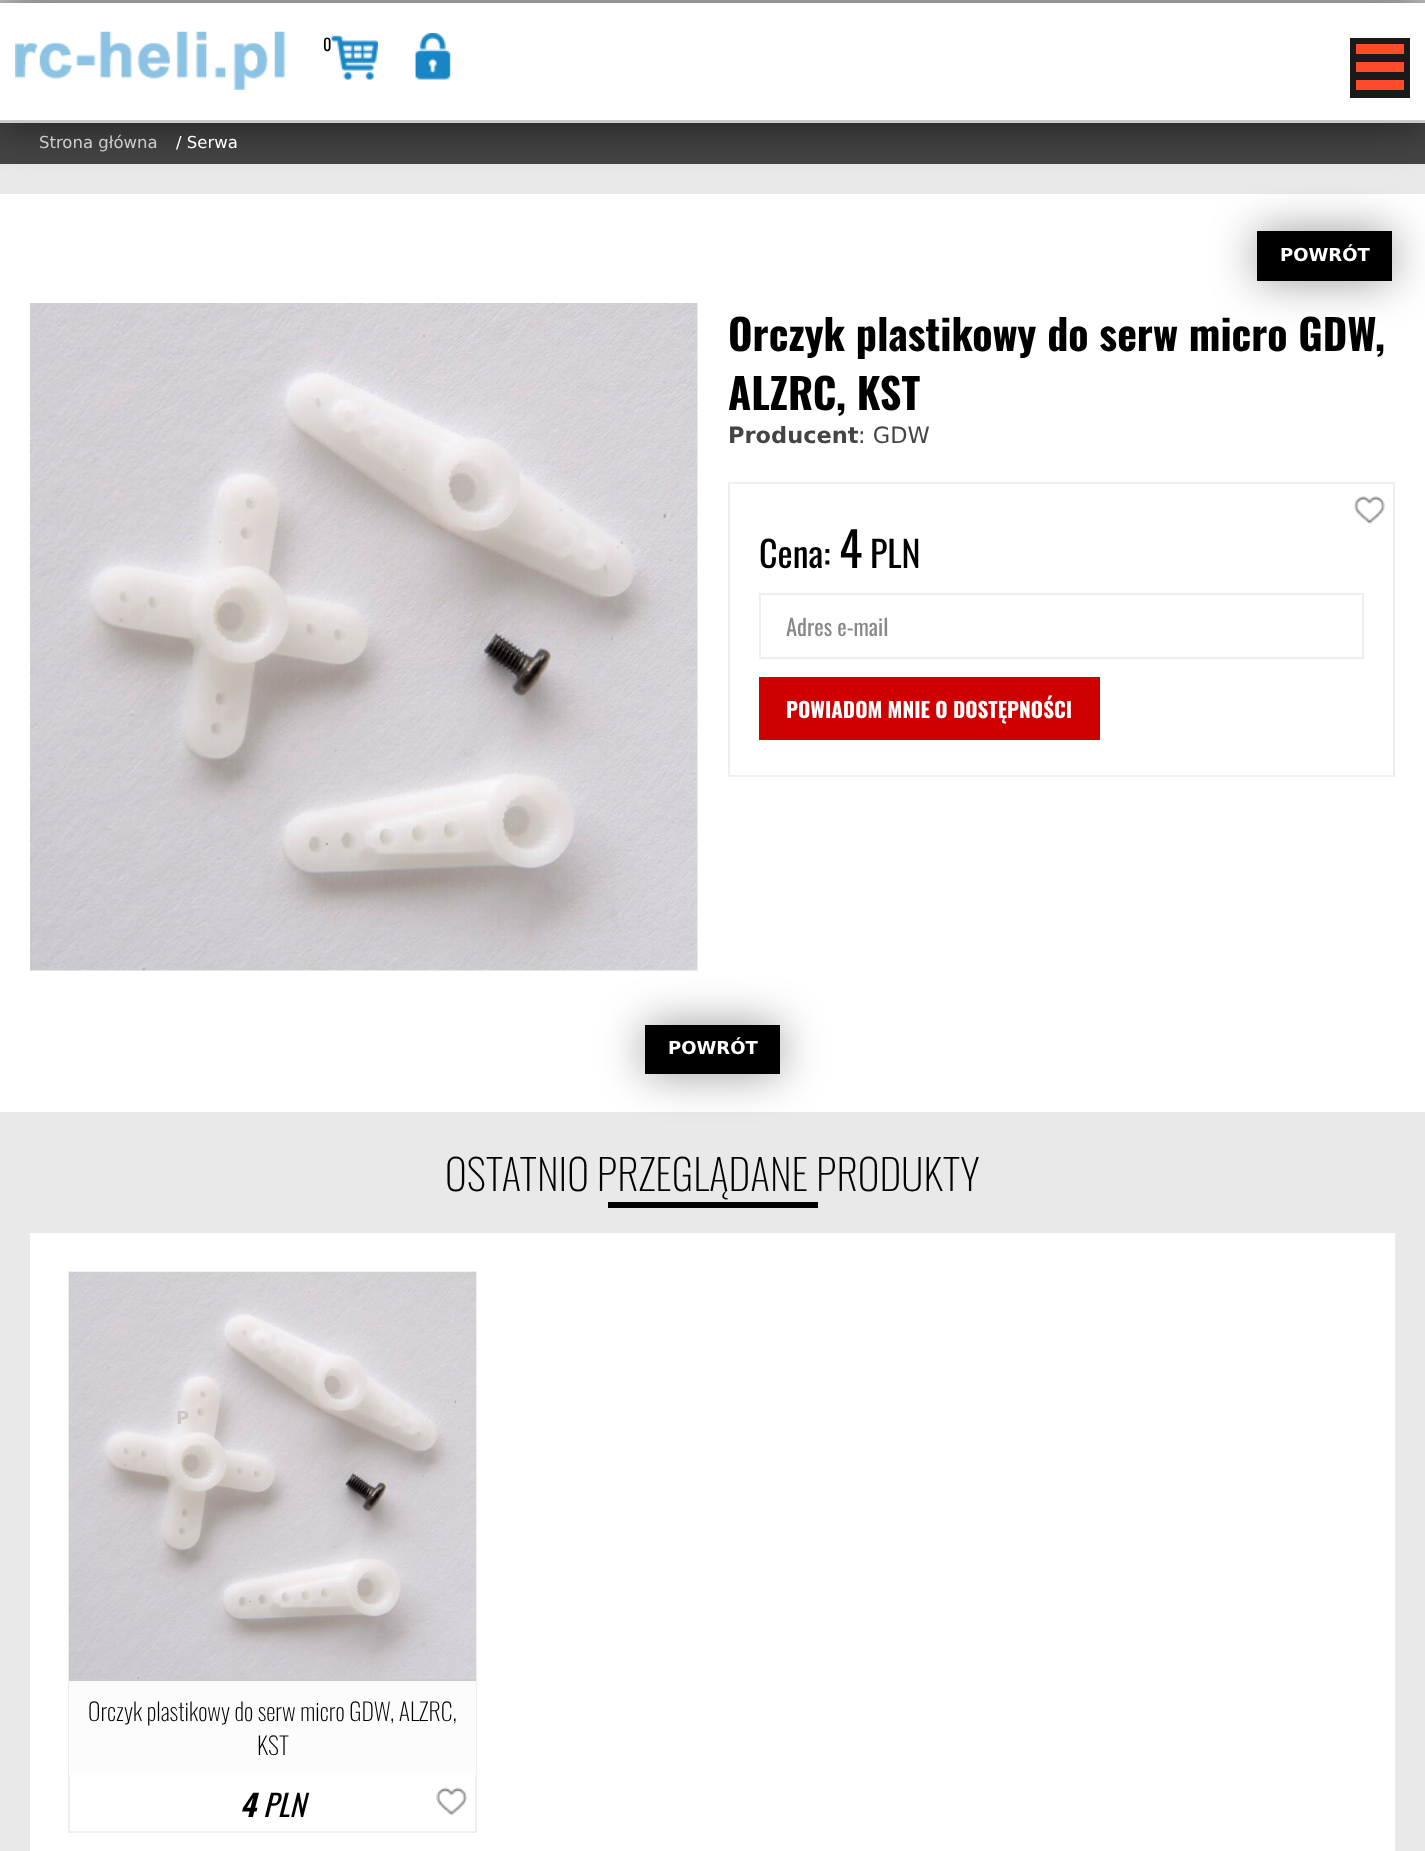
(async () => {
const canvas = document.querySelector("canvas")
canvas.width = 1425
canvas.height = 1851
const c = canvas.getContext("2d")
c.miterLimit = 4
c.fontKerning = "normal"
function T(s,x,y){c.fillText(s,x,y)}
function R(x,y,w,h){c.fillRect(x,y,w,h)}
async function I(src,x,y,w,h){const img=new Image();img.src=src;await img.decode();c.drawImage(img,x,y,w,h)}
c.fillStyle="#e9e9e9"
R(0,0,1425,1851)
c.fillStyle="#ccc"
R(0,0,1425,3)
c.fillStyle="#444"
R(0,123,1425,41)
c.fillStyle="#00000099"
c.filter="blur(22.5px)"
c.beginPath()
c.rect(0,3,1425,120)
c.fill()
c.filter="none"
c.fillStyle="#fff"
R(0,3,1425,117)
c.fillStyle="#ccc"
R(0,120,1425,3)
await I("1.png",15,31,270,59)
c.font="16.5px Oswald"
c.fillStyle="#000"
T("0",323,51)
await I("2.png",331,35,47,45)
await I("3.png",415,33,36,47)
c.font="16.5px DejaVu Sans"
c.fillStyle="#ccc"
T("Strona główna",39,148)
c.fillStyle="#fff"
T("/ Serwa",176,148)
R(0,194,1425,918)
c.fillStyle="#00000066"
c.filter="blur(22.5px)"
c.beginPath()
c.rect(1257,231,135,50)
c.fill()
c.filter="none"
c.fillStyle="#000"
R(1257,231,135,50)
c.font="bold 18px DejaVu Sans"
c.fillStyle="#fff"
T("POWRÓT",1280,261)
await I("4.png",30,303,668,668)
c.font="bold 42px Oswald"
c.fillStyle="#000"
T("Orczyk plastikowy do serw micro GDW,",728,351)
T("ALZRC, KST",728,410)
c.font="bold 22.5px DejaVu Sans"
c.fillStyle="#444"
T("Producent",728,443)
c.font="22.5px DejaVu Sans"
T(": GDW",858,443)
c.strokeStyle="#eee"
c.lineWidth=2
c.strokeRect(729,483,665,293)
await I("5.png",1354,496,31,28)
c.font="36px Oswald"
c.fillStyle="#000"
T("Cena:",759,568)
c.font="48px Oswald"
T("4",839,568)
c.font="36px Oswald"
T("PLN",870,568)
c.strokeRect(760,594,603,64)
c.font="22.5px Oswald"
c.fillStyle="#888"
T("Adres e-mail",786,636)
c.fillStyle="#cf0000"
R(759,677,341,63)
c.font="bold 21px Oswald"
c.fillStyle="#fff"
T("POWIADOM MNIE O DOSTĘPNOŚCI",786,718)
c.fillStyle="#00000066"
c.filter="blur(22.5px)"
c.beginPath()
c.rect(645,1025,135,49)
c.fill()
c.filter="none"
c.fillStyle="#000"
R(645,1025,135,49)
c.font="bold 18px DejaVu Sans"
c.fillStyle="#fff"
T("POWRÓT",668,1054)
c.font="200 42px Oswald"
c.fillStyle="#000"
T("OSTATNIO PRZEGLĄDANE PRODUKTY",445,1191)
R(608,1202,210,6)
c.fillStyle="#fff"
R(30,1233,1365,618)
c.strokeRect(69,1272,407,560)
await I("6.png",69,1272,407,407)
c.font="bold 18px DejaVu Sans"
c.fillStyle="#cdc6c6"
T("P",176,1424)
c.fillStyle="#fcfcfc"
R(69,1681,407,94)
c.fillStyle="#ccc"
R(69,1679,407,2)
c.font="200 24px Oswald"
c.fillStyle="#000"
T("Orczyk plastikowy do serw micro GDW, ALZRC,",88,1721)
T("KST",257,1755)
c.font="italic bold 30px Oswald"
T("4",240,1817)
c.font="italic 30px Oswald"
T("PLN",263,1817)
await I("7.png",436,1787,31,29)
c.fillStyle="#1a1a1a"
R(1350,38,60,60)
c.fillStyle="#ff4b2a"
R(1356,44,48,10)
R(1356,62,48,10)
R(1356,80,48,10)
})()
